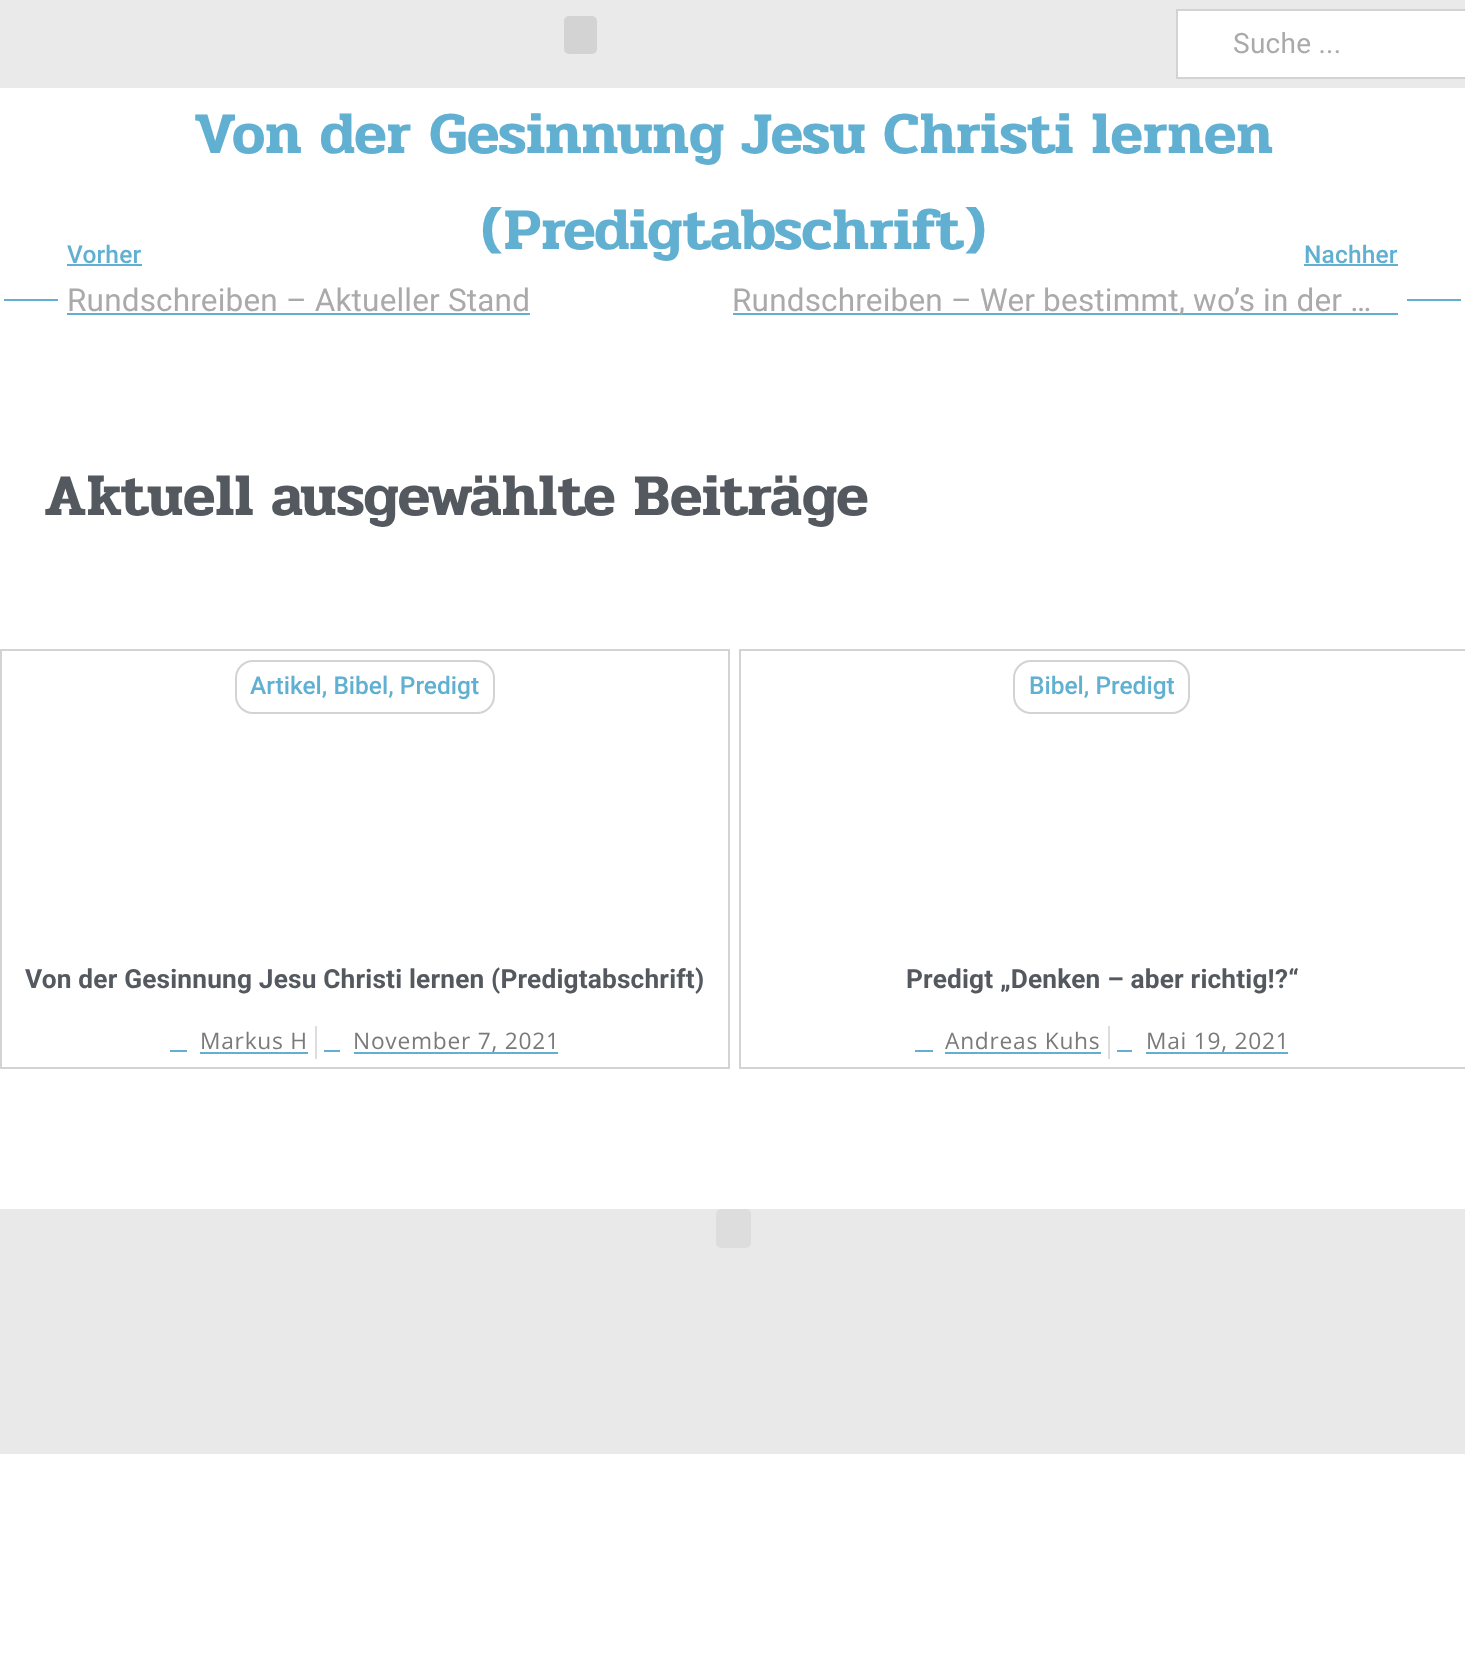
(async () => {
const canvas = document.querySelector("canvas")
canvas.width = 1465
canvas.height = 1673
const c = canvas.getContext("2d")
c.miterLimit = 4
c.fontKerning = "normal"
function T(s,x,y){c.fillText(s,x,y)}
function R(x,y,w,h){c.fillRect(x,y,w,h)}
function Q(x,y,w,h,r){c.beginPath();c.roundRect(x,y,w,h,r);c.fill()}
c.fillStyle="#fff"
R(0,0,1465,1673)
c.fillStyle="#eaeaea"
R(0,0,1465,88)
c.fillStyle="#d3d3d3"
Q(564,16,33,38,5)
R(1176,9,2,70)
c.fillStyle="#fff"
c.beginPath()
c.roundRect(1177,10,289,68,1)
c.fill()
c.strokeStyle="#d3d3d3"
c.lineWidth=2
c.stroke()
c.letterSpacing="0.25px"
c.font="28px Roboto"
c.fillStyle="#aaa"
T("Suche ...",1233,53)
c.letterSpacing="0.18px"
c.font="600 59.5px Pridi"
c.fillStyle="#61b0d2"
T("Von der Gesinnung Jesu Christi lernen",194,153)
T("(Predigtabschrift)",481,249)
R(4,299,54,2)
c.font="500 24.5px Roboto"
T("Vorher",67,263)
R(67,264,75,2)
c.font="31.5px Roboto"
c.fillStyle="#aaa"
T("Rundschreiben – Aktueller Stand",67,311)
c.fillStyle="#61b0d2"
R(67,313,463,2)
c.font="500 24.5px Roboto"
T("Nachher",1304,263)
R(1304,264,94,2)
R(733,313,665,2)
c.font="31.5px Roboto"
c.fillStyle="#aaa"
T("Rundschreiben – Wer bestimmt, wo’s in der …",732,311)
c.fillStyle="#61b0d2"
R(1407,299,54,2)
c.font="600 59.5px Pridi"
c.fillStyle="#54595f"
T("Aktuell ausgewählte Beiträge",44,515)
c.strokeRect(1,650,728,418)
c.beginPath()
c.roundRect(236,661,258,52,17)
c.stroke()
c.letterSpacing="0px"
c.font="500 24.5px Roboto"
c.fillStyle="#61b0d2"
T("Artikel, Bibel, Predigt",250,694)
c.letterSpacing="0.18px"
c.font="bold 26.25px Roboto"
c.fillStyle="#54595f"
T("Von der Gesinnung Jesu Christi lernen (Predigtabschrift)",25,988)
c.letterSpacing="0.75px"
c.font="22.75px Open Sans"
c.fillStyle="#7a7a7a"
T("Markus H",200,1049)
c.fillStyle="#61b0d2"
R(200,1052,108,2)
R(170,1050,17,2)
c.fillStyle="#ddd"
R(315,1026,2,33)
c.fillStyle="#61b0d2"
R(324,1050,16,2)
c.fillStyle="#7a7a7a"
T("November 7, 2021",353,1049)
c.fillStyle="#61b0d2"
R(354,1052,204,2)
c.strokeRect(740,650,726,418)
c.beginPath()
c.roundRect(1014,661,175,52,17)
c.stroke()
c.letterSpacing="0px"
c.font="500 24.5px Roboto"
T("Bibel, Predigt",1029,694)
c.letterSpacing="0.18px"
c.font="bold 26.25px Roboto"
c.fillStyle="#54595f"
T("Predigt „Denken – aber richtig!?“",906,988)
c.letterSpacing="0.75px"
c.font="22.75px Open Sans"
c.fillStyle="#7a7a7a"
T("Andreas Kuhs",945,1049)
c.fillStyle="#61b0d2"
R(945,1052,156,2)
R(915,1050,18,2)
c.fillStyle="#ddd"
R(1108,1026,2,33)
c.fillStyle="#61b0d2"
R(1117,1050,15,2)
c.fillStyle="#7a7a7a"
T("Mai 19, 2021",1146,1049)
c.fillStyle="#61b0d2"
R(1146,1052,142,2)
c.fillStyle="#e9e9e9"
R(0,1209,1465,245)
c.fillStyle="#ddd"
Q(716,1209,35,39,5)
})()
